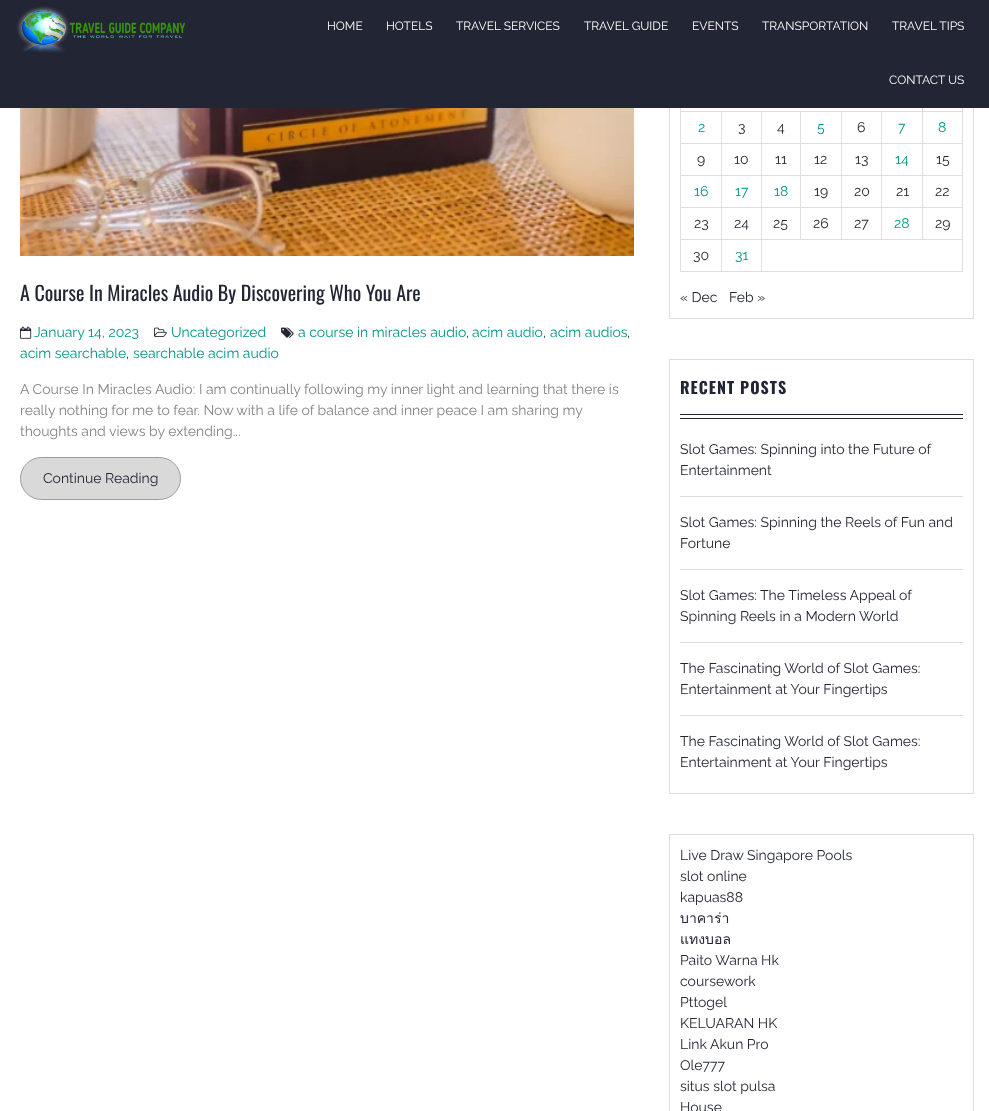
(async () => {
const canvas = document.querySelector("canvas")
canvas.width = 989
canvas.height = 1111
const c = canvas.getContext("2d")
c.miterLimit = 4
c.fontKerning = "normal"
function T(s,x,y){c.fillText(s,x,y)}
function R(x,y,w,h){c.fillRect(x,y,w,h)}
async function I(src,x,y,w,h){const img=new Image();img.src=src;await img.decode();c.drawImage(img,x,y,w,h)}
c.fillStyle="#fff"
R(0,0,989,1111)
c.strokeStyle="#ddd"
c.strokeRect(669.5,-.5,304,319)
c.fillStyle="#222534"
R(0,0,989,108)
await I("1.png",16,6,169,47)
c.font="12px Raleway"
c.fillStyle="#fff"
T("HOME",327,30)
T("HOTELS",386,30)
T("TRAVEL SERVICES",456,30)
T("TRAVEL GUIDE",584,30)
T("EVENTS",692,30)
T("TRANSPORTATION",762,30)
T("TRAVEL TIPS",892,30)
T("CONTACT US",889,84)
await I("2.png",20,108,614,148)
c.font="20px Oswald"
c.fillStyle="#222534"
T("A Course In Miracles Audio By Discovering Who You Are",20,301)
await I("3.png",281,327,13,11)
c.font="14px Raleway"
c.fillStyle="#009586"
T("a course in miracles audio",298,337)
c.fillStyle="#222534"
T(",",466,337)
c.fillStyle="#009586"
T("acim audio",472,337)
c.fillStyle="#222534"
T(",",543,337)
c.fillStyle="#009586"
T("acim audios",550,337)
c.fillStyle="#222534"
T(",",627,337)
c.fillStyle="#009586"
T("acim searchable",20,358)
c.fillStyle="#222534"
T(",",126,358)
c.fillStyle="#009586"
T("searchable acim audio",133,358)
await I("4.png",20,326,12,13)
T("January 14, 2023",34,337)
await I("5.png",154,327,13,10)
T("Uncategorized",171,337)
c.fillStyle="#848484"
T("A Course In Miracles Audio: I am continually following my inner light and learning that there is",20,394)
T("really nothing for me to fear. Now with a life of balance and inner peace I am sharing my",20,415)
T("thoughts and views by extending...",20,436)
c.fillStyle="#d9d9d9"
c.beginPath()
c.roundRect(20.5,457.5,160,42,21)
c.fill()
c.strokeStyle="#9f9c9c"
c.stroke()
c.fillStyle="#222534"
T("Continue Reading",43,483)
c.fillStyle="#dedede"
R(962,108,1,164)
R(680,111,282,1)
R(680,108,1,4)
R(922,108,1,4)
R(680,143,282,1)
R(680,112,1,32)
c.fillStyle="#009586"
T("2",698,132)
c.fillStyle="#dedede"
R(721,112,1,32)
c.fillStyle="#222534"
T("3",738,132)
c.fillStyle="#dedede"
R(761,112,1,32)
c.fillStyle="#222534"
T("4",777,132)
c.fillStyle="#dedede"
R(800,112,1,32)
c.fillStyle="#009586"
T("5",817,132)
c.fillStyle="#dedede"
R(841,112,1,32)
c.fillStyle="#222534"
T("6",857,132)
c.fillStyle="#dedede"
R(881,112,1,32)
c.fillStyle="#009586"
T("7",898,132)
c.fillStyle="#dedede"
R(922,112,1,32)
c.fillStyle="#009586"
T("8",938,132)
c.fillStyle="#dedede"
R(680,175,282,1)
R(680,144,1,32)
c.fillStyle="#222534"
T("9",697,164)
c.fillStyle="#dedede"
R(721,144,1,32)
c.fillStyle="#222534"
T("10",734,164)
c.fillStyle="#dedede"
R(761,144,1,32)
c.fillStyle="#222534"
T("11",775,164)
c.fillStyle="#dedede"
R(800,144,1,32)
c.fillStyle="#222534"
T("12",814,164)
c.fillStyle="#dedede"
R(841,144,1,32)
c.fillStyle="#222534"
T("13",855,164)
c.fillStyle="#dedede"
R(881,144,1,32)
c.fillStyle="#009586"
T("14",895,164)
c.fillStyle="#dedede"
R(922,144,1,32)
c.fillStyle="#222534"
T("15",936,164)
c.fillStyle="#dedede"
R(680,207,282,1)
R(680,176,1,32)
c.fillStyle="#009586"
T("16",694,196)
c.fillStyle="#dedede"
R(721,176,1,32)
c.fillStyle="#009586"
T("17",735,196)
c.fillStyle="#dedede"
R(761,176,1,32)
c.fillStyle="#009586"
T("18",774,196)
c.fillStyle="#dedede"
R(800,176,1,32)
c.fillStyle="#222534"
T("19",814,196)
c.fillStyle="#dedede"
R(841,176,1,32)
c.fillStyle="#222534"
T("20",854,196)
c.fillStyle="#dedede"
R(881,176,1,32)
c.fillStyle="#222534"
T("21",896,196)
c.fillStyle="#dedede"
R(922,176,1,32)
c.fillStyle="#222534"
T("22",935,196)
c.fillStyle="#dedede"
R(680,239,282,1)
R(680,208,1,32)
c.fillStyle="#222534"
T("23",694,228)
c.fillStyle="#dedede"
R(721,208,1,32)
c.fillStyle="#222534"
T("24",734,228)
c.fillStyle="#dedede"
R(761,208,1,32)
c.fillStyle="#222534"
T("25",773,228)
c.fillStyle="#dedede"
R(800,208,1,32)
c.fillStyle="#222534"
T("26",813,228)
c.fillStyle="#dedede"
R(841,208,1,32)
c.fillStyle="#222534"
T("27",854,228)
c.fillStyle="#dedede"
R(881,208,1,32)
c.fillStyle="#009586"
T("28",894,228)
c.fillStyle="#dedede"
R(922,208,1,32)
c.fillStyle="#222534"
T("29",935,228)
c.fillStyle="#dedede"
R(680,271,282,1)
R(680,240,1,32)
c.fillStyle="#222534"
T("30",693,260)
c.fillStyle="#dedede"
R(721,240,1,32)
c.fillStyle="#009586"
T("31",735,260)
c.fillStyle="#dedede"
R(761,240,1,32)
c.fillStyle="#222534"
T("« Dec",680,302)
T("Feb »",729,302)
c.strokeStyle="#ddd"
c.strokeRect(669.5,359.5,304,434)
R(680,418,283,1)
R(680,414,283,1)
c.letterSpacing="1px"
c.font="bold 16px Oswald"
T("RECENT POSTS",680,394)
c.fillStyle="#ddd"
R(680,496,283,1)
c.letterSpacing="0px"
c.font="14px Raleway"
c.fillStyle="#222534"
T("Slot Games: Spinning into the Future of",680,454)
T("Entertainment",680,475)
c.fillStyle="#ddd"
R(680,569,283,1)
c.fillStyle="#222534"
T("Slot Games: Spinning the Reels of Fun and",680,527)
T("Fortune",680,548)
c.fillStyle="#ddd"
R(680,642,283,1)
c.fillStyle="#222534"
T("Slot Games: The Timeless Appeal of",680,600)
T("Spinning Reels in a Modern World",680,621)
c.fillStyle="#ddd"
R(680,715,283,1)
c.fillStyle="#222534"
T("The Fascinating World of Slot Games:",680,673)
T("Entertainment at Your Fingertips",680,694)
T("The Fascinating World of Slot Games:",680,746)
T("Entertainment at Your Fingertips",680,767)
c.strokeRect(669.5,834.5,304,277)
T("Live Draw Singapore Pools",680,860)
T("slot online",680,881)
T("kapuas88",680,902)
c.font="14px Loma"
T("บาคาร่า",680,923)
T("แทงบอล",680,944)
c.font="14px Raleway"
T("Paito Warna Hk",680,965)
T("coursework",680,986)
T("Pttogel",680,1007)
T("KELUARAN HK",680,1028)
T("Link Akun Pro",680,1049)
T("Ole777",680,1070)
T("situs slot pulsa",680,1091)
T("House",680,1112)
})()
